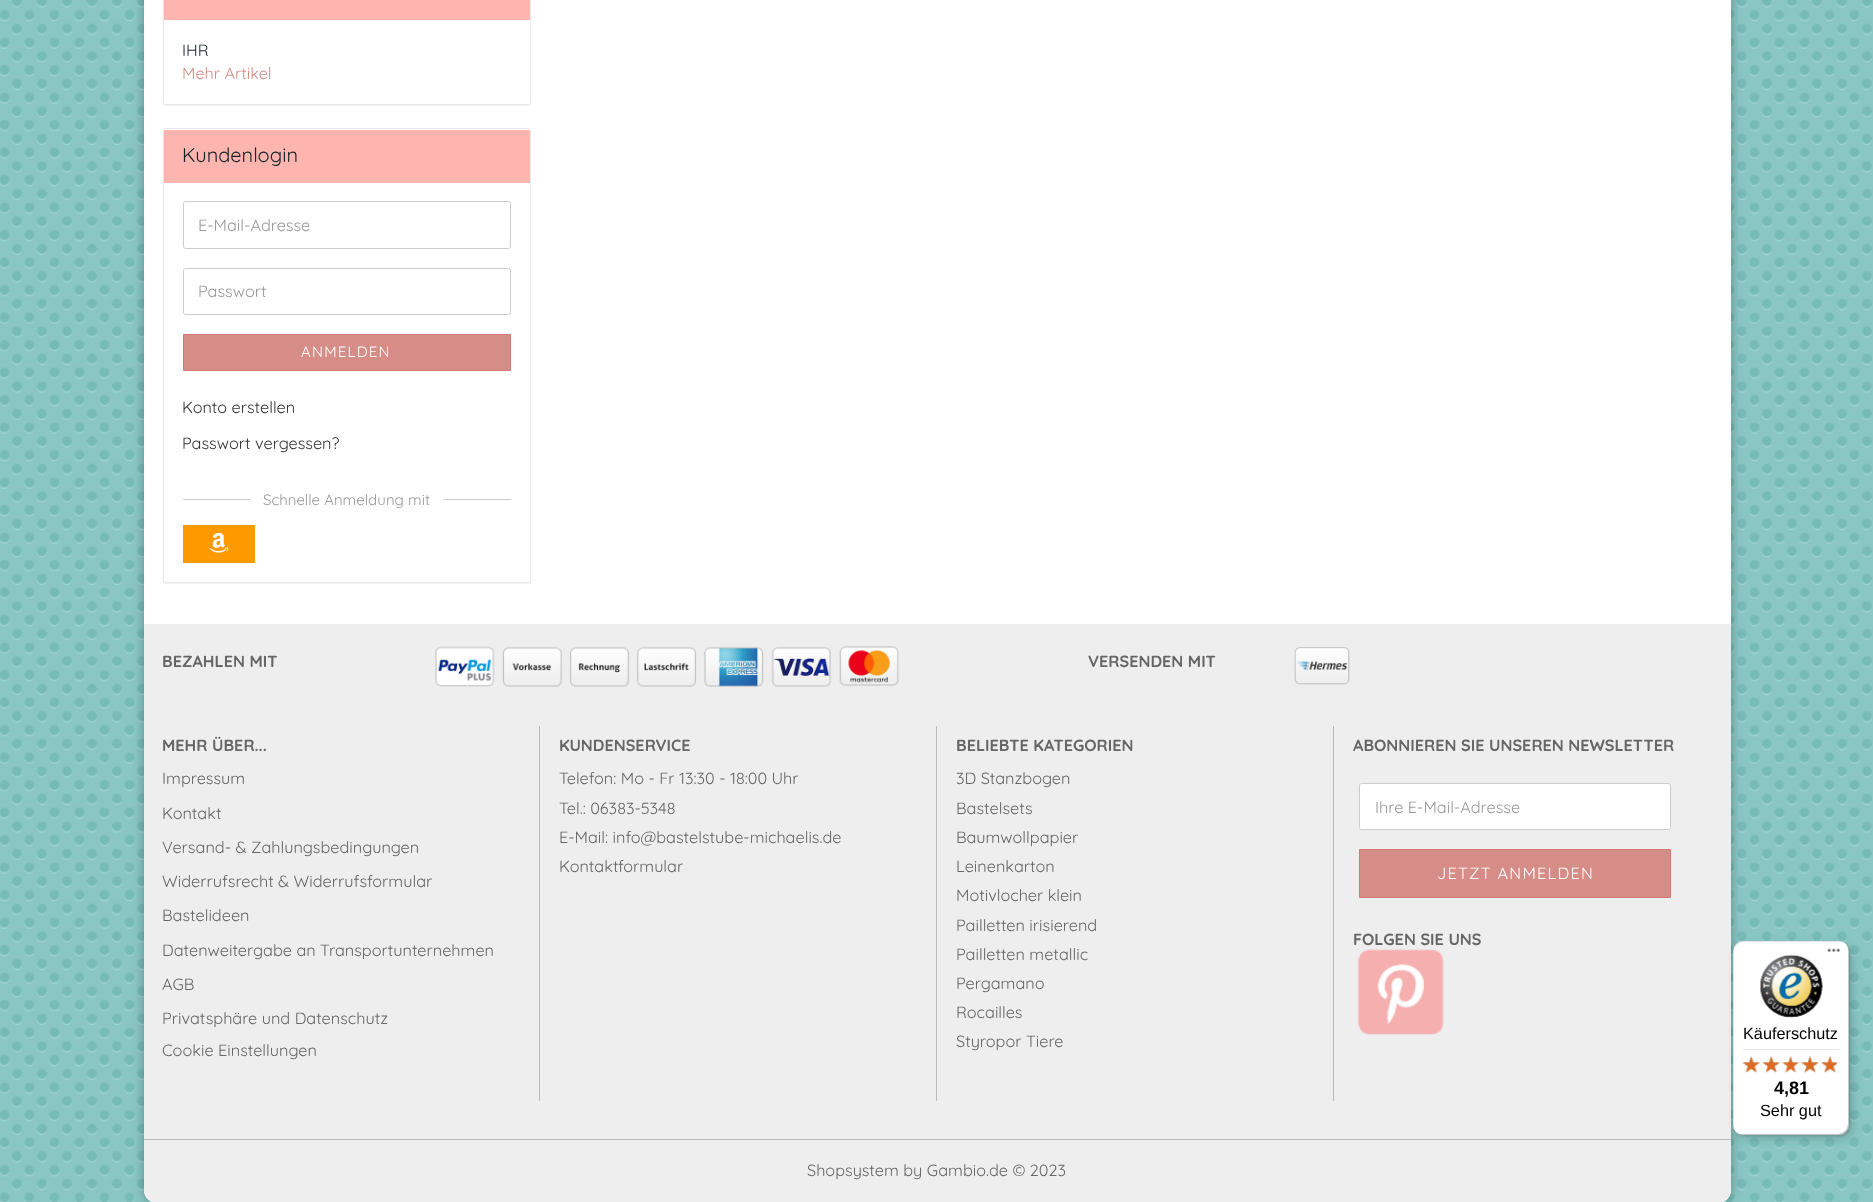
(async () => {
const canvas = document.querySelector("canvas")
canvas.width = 1873
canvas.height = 1202
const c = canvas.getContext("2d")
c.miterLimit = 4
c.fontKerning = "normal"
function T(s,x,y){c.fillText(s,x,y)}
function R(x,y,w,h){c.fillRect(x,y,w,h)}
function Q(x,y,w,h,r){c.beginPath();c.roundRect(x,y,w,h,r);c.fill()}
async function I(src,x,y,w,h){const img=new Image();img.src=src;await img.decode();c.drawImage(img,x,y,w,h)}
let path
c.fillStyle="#fff"
R(0,0,1873,1202)
await I("1.png",0,0,1873,1202)
c.fillStyle="#0000004d"
c.filter="blur(6px)"
c.beginPath()
c.roundRect(144,-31,1587,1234,13)
c.fill()
c.filter="none"
c.fillStyle="#fff"
Q(144,-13,1587,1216,13)
c.save()
path = new Path2D("M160 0h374v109h-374zm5.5-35h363c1.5 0 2.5 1 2.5 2.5v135c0 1.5-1 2.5-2.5 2.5h-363c-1.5 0-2.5-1-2.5-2.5v-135c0-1.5 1-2.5 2.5-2.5z")
c.clip(path,"evenodd")
c.fillStyle="#0000000d"
c.filter="blur(0.5px)"
c.beginPath()
c.roundRect(163,-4,368,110,2.5)
c.fill()
c.filter="none"
c.restore()
c.beginPath()
c.roundRect(163.5,-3.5,367,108,2)
c.strokeStyle="#e7e7e7"
c.stroke()
c.fillStyle="#ffb5af"
R(164,0,366,20)
c.font="300 16.25px Quicksand"
c.fillStyle="#152527"
T("IHR",182,56)
c.fillStyle="#d78d87"
T("Mehr Artikel",182,79)
c.fillStyle="#0000000d"
c.filter="blur(0.5px)"
c.beginPath()
c.roundRect(163,129,368,455,2.5)
c.fill()
c.filter="none"
c.fillStyle="#fff"
c.beginPath()
c.roundRect(163.5,128.5,367,454,2)
c.fill()
c.stroke()
c.fillStyle="#ffb5af"
c.beginPath()
c.roundRect(164,129,366,54,[1,1,0,0])
c.fill()
c.fillStyle="#fff"
path = new Path2D("M165 130h364l1 1c0-1 0-2-1-2h-364l-1 1v1z")
c.fill(path)
c.font="300 20px Quicksand"
c.fillStyle="#152527"
T("Kundenlogin",182,162)
c.beginPath()
c.roundRect(183.5,201.5,327,47,2)
c.strokeStyle="#ccc"
c.stroke()
c.font="300 16.25px Quicksand"
c.fillStyle="#999"
T("E-Mail-Adresse",198,231)
c.beginPath()
c.roundRect(183.5,268.5,327,46,2)
c.stroke()
T("Passwort",198,297)
c.fillStyle="#d78d87"
c.beginPath()
c.rect(183.5,334.5,327,36)
c.fill()
c.strokeStyle="#d17b74"
c.stroke()
c.letterSpacing="1.25px"
c.font="300 15px Quicksand"
c.fillStyle="#fff"
T("ANMELDEN",301,357)
c.letterSpacing="0px"
c.font="300 16.25px Quicksand"
c.fillStyle="#333"
T("Konto erstellen",182,413)
T("Passwort vergessen?",182,449)
c.fillStyle="#ccc"
R(183,499,328,1)
c.fillStyle="#fff"
R(250,499,193,1)
c.font="300 15px Quicksand"
c.fillStyle="#999"
T("Schnelle Anmeldung mit",263,505)
c.fillStyle="#f90"
R(183,525,72,38)
await I("2.png",209,533,20,20)
c.fillStyle="#eee"
path = new Path2D("M144 624h1587v566c0 7-6 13-13 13h-1561c-7 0-13-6-13-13z")
c.fill(path)
c.font="300 16.25px 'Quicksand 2'"
c.fillStyle="#666"
T("BEZAHLEN MIT",162,667)
await I("3.png",435,646,464,41)
T("VERSENDEN MIT",1088,667)
await I("4.png",1294,647,56,38)
c.fillStyle="#bbb"
R(144,1139,1587,1)
R(539,726,1,375)
c.fillStyle="#666"
T("MEHR ÜBER...",162,751)
c.font="300 16.25px Quicksand"
T("Impressum",162,784)
T("Kontakt",162,819)
T("Versand- & Zahlungsbedingungen",162,853)
T("Widerrufsrecht & Widerrufsformular",162,887)
T("Bastelideen",162,921)
T("Datenweitergabe an Transportunternehmen",162,956)
T("AGB",162,990)
T("Privatsphäre und Datenschutz",162,1024)
T("Cookie Einstellungen",162,1056)
c.fillStyle="#bbb"
R(936,726,1,375)
c.font="300 16.25px 'Quicksand 2'"
c.fillStyle="#666"
T("KUNDENSERVICE",559,751)
c.font="300 16.25px Quicksand"
T("Telefon: Mo - Fr 13:30 - 18:00 Uhr",559,784)
T("Tel.: 06383-5348",559,814)
T("E-Mail: info@bastelstube-michaelis.de",559,843)
T("Kontaktformular",559,872)
c.fillStyle="#bbb"
R(1333,726,1,375)
c.font="300 16.25px 'Quicksand 2'"
c.fillStyle="#666"
T("BELIEBTE KATEGORIEN",956,751)
c.font="300 16.25px Quicksand"
T("3D Stanzbogen",956,784)
T("Bastelsets",956,814)
T("Baumwollpapier",956,843)
T("Leinenkarton",956,872)
T("Motivlocher klein",956,901)
T("Pailletten irisierend",956,931)
T("Pailletten metallic",956,960)
T("Pergamano",956,989)
T("Rocailles",956,1018)
T("Styropor Tiere",956,1047)
c.font="300 16.25px 'Quicksand 2'"
T("ABONNIEREN SIE UNSEREN NEWSLETTER",1353,751)
c.fillStyle="#fff"
c.beginPath()
c.roundRect(1359.5,783.5,311,46,2)
c.fill()
c.strokeStyle="#ccc"
c.stroke()
c.font="300 16.25px Quicksand"
c.fillStyle="#999"
T("Ihre E-Mail-Adresse",1375,813)
c.fillStyle="#d78d87"
c.beginPath()
c.rect(1359.5,849.5,311,48)
c.fill()
c.strokeStyle="#d17b74"
c.stroke()
c.letterSpacing="1.25px"
c.fillStyle="#fff"
T("JETZT ANMELDEN",1437,879)
c.letterSpacing="0px"
c.font="300 16.25px 'Quicksand 2'"
c.fillStyle="#666"
T("FOLGEN SIE UNS",1353,945)
await I("5.png",1357,949,87,86)
c.font="300 16.25px Quicksand"
T("Shopsystem by Gambio.de © 2023",807,1176)
c.fillStyle="#00000026"
c.filter="blur(5px)"
c.beginPath()
c.roundRect(1736,945,117,194,10)
c.fill()
c.filter="none"
c.filter="blur(1px)"
c.beginPath()
c.roundRect(1734,943,116,193,10)
c.fill()
c.filter="none"
c.fillStyle="#fff"
Q(1733,941,116,194,10)
c.fillStyle="#0000001a"
path = new Path2D("M1744 942h96c3 0 5 1 7 2c-2-2-5-3-8-3h-96c-6 0-10 4-10 10v174c0 2 1 5 2 6c-1-1-1-3-1-5v-174c0-5 4-10 10-10z")
c.fill(path)
c.fillStyle="#00000033"
path = new Path2D("M1737 1133c2 1 4 2 6 2h96c6 0 10-4 10-10v-174c0-3-1-6-3-8c1 2 2 4 2 7v174c0 5-5 10-10 10h-97c-1 0-3 0-4-1z")
c.fill(path)
c.fillStyle="#32323233"
path = new Path2D("M1737 1133c1 1 4 2 6 2h96c6 0 10-4 10-10v-174c0-3-1-6-4-8c2 2 3 5 3 7v174c0 6-4 10-10 10h-96c-2 0-4 0-5-1z")
c.fill(path)
c.fillStyle="#ffffff4d"
path = new Path2D("M1737 1133c1 1 4 2 6 2h96c6 0 10-4 10-10v-174c0-6-4-10-10-10h-1c6 0 10 4 10 10v173c0 6-4 10-10 10h-96c-2 0-4 0-5-1z")
c.fill(path)
await I("6.png",1827,948,13,4)
await I("7.png",1760,954,63,64)
c.font="16.25px Liberation Sans"
c.fillStyle="#000"
T("Käuferschutz",1743,1039)
c.fillStyle="#e5e5e5"
R(1743,1049,96,1)
await I("13.png",1743,1056,17,16)
await I("8.png",1742,1056,18,17)
await I("14.png",1763,1056,17,17)
await I("9.png",1762,1056,18,17)
await I("15.png",1782,1056,17,16)
await I("10.png",1782,1056,17,17)
await I("16.png",1801,1056,18,17)
await I("11.png",1801,1056,18,17)
await I("17.png",1821,1056,18,16)
await I("12.png",1821,1056,16,17)
c.font="bold 18px Liberation Sans"
c.fillStyle="#000"
T("4,81",1774,1094)
c.font="16.25px Liberation Sans"
T("Sehr gut",1760,1116)
})()
